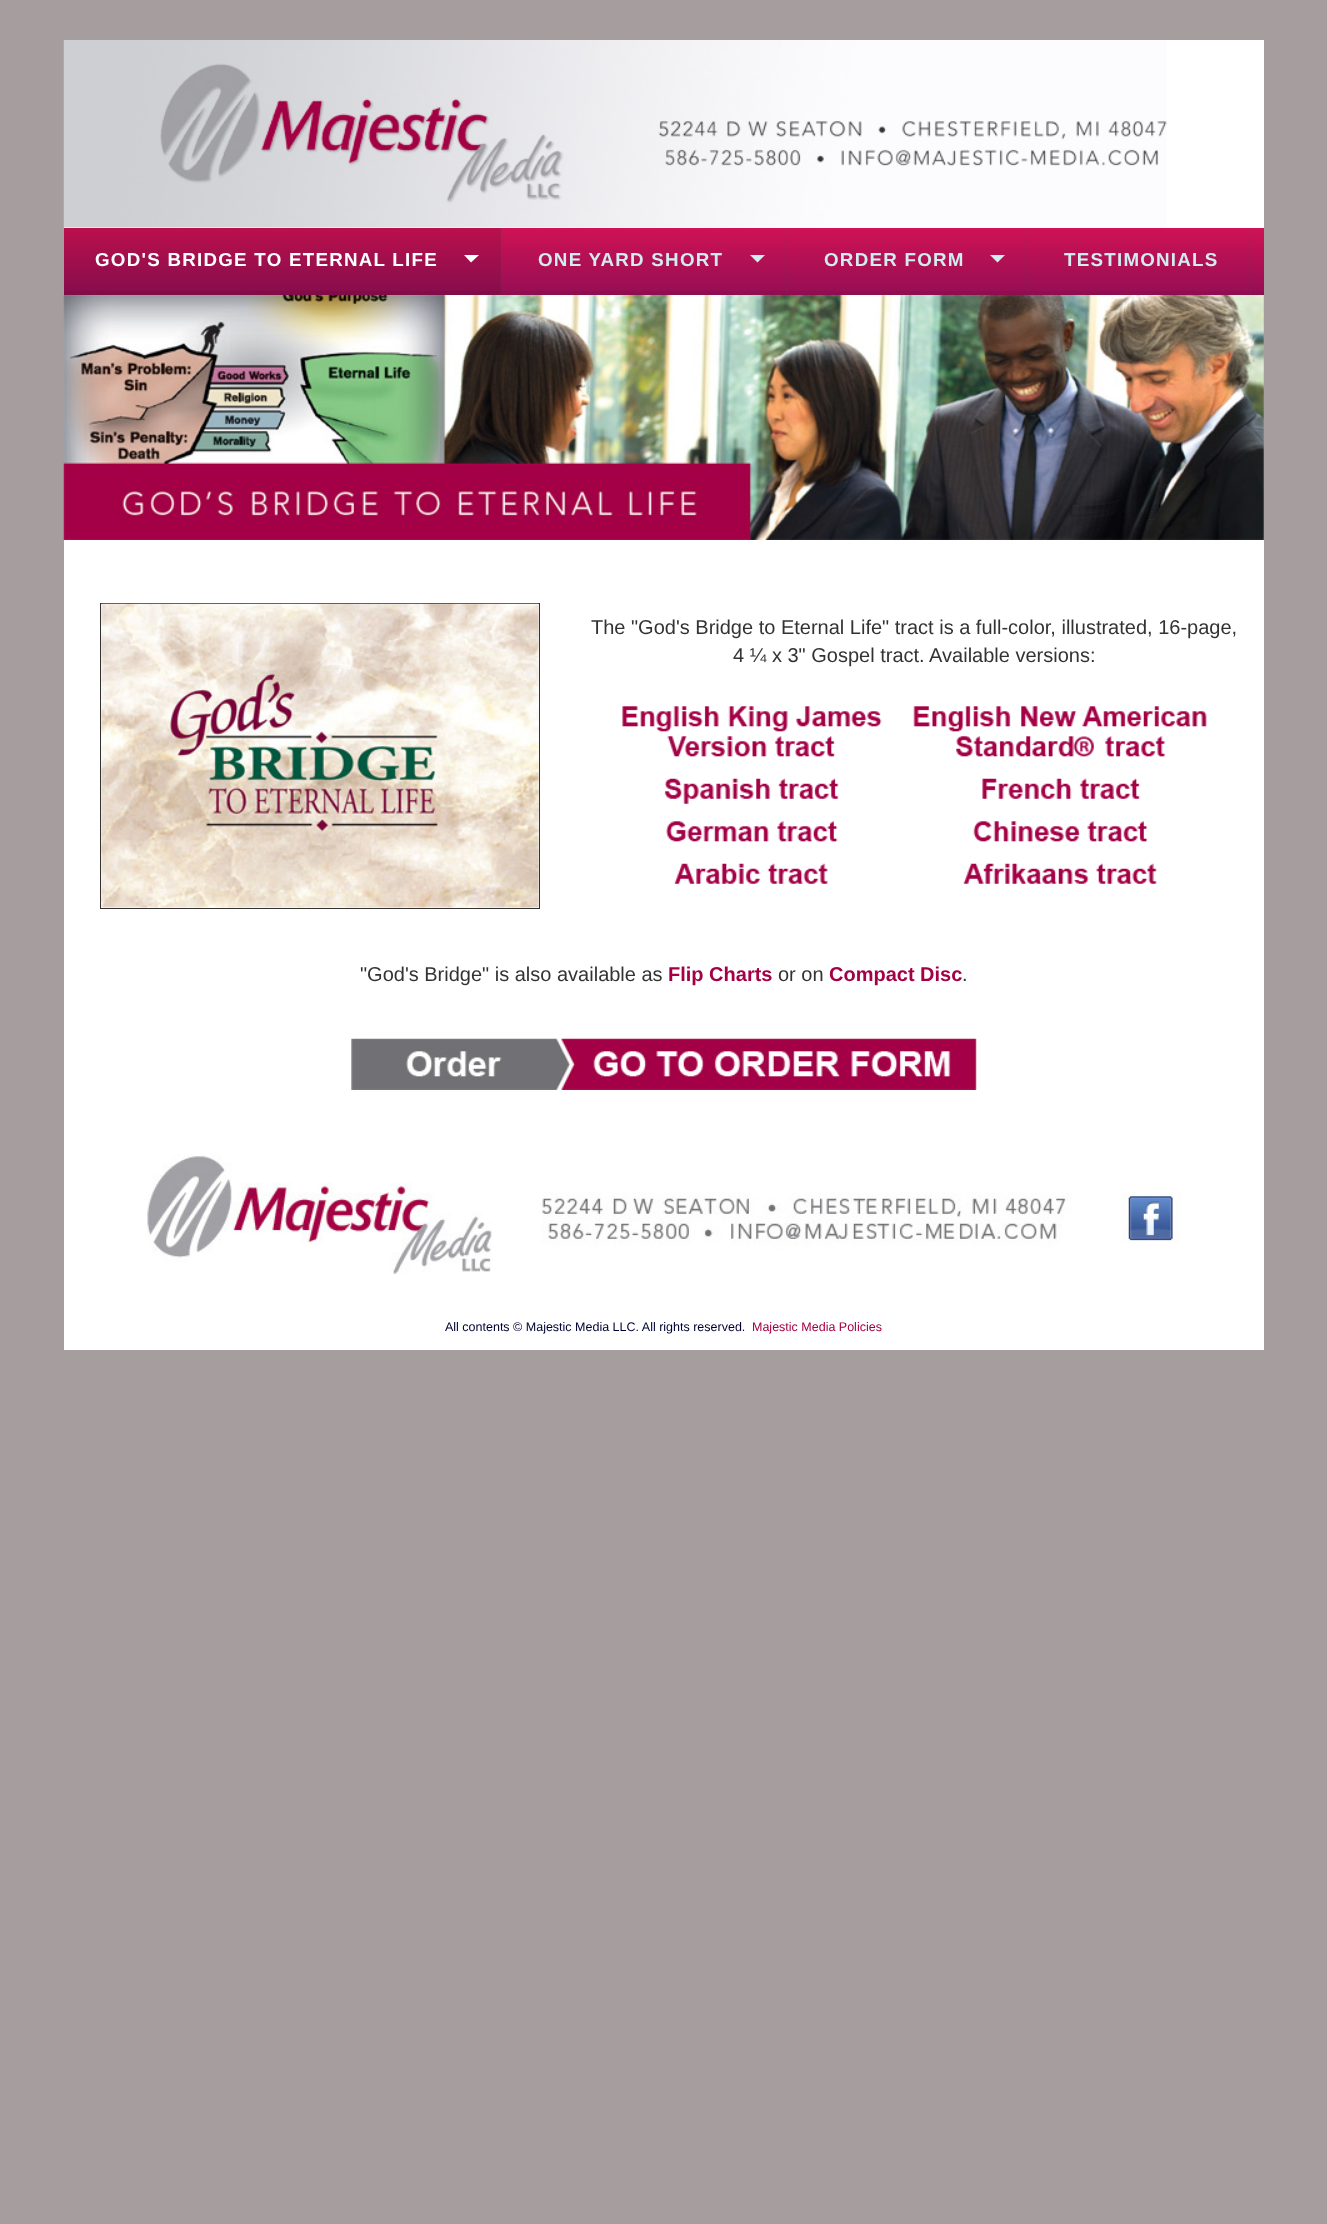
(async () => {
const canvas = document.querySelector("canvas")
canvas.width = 1327
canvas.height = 2224
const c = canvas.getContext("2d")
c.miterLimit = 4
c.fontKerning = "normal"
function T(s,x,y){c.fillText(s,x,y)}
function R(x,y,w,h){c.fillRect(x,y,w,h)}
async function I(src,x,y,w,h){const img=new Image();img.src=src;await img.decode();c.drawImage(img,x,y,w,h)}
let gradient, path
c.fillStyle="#a69e9e"
R(0,0,1327,2224)
c.fillStyle="#fff"
R(64,40,1200,188)
await I("1.png",63,40,1104,188)
gradient = c.createLinearGradient(664,227,664,295)
gradient.addColorStop(0,"#d01255")
gradient.addColorStop(1,"#950e54")
c.fillStyle = gradient
R(501,228,763,63)
gradient = c.createLinearGradient(664,227,664,295)
gradient.addColorStop(0,"#c11954")
gradient.addColorStop(1,"#8d1654")
c.fillStyle = gradient
R(1250,228,1,67)
R(1026,228,1,67)
R(786,228,1,67)
gradient = c.createLinearGradient(664,227,664,295)
gradient.addColorStop(0,"#bb104d")
gradient.addColorStop(1,"#860d4c")
c.fillStyle = gradient
R(64,228,436,63)
gradient = c.createLinearGradient(664,227,664,295)
gradient.addColorStop(0,"#ae184d")
gradient.addColorStop(1,"#80154c")
c.fillStyle = gradient
R(500,228,1,67)
gradient = c.createLinearGradient(664,227,664,295)
gradient.addColorStop(0,"#c61151")
gradient.addColorStop(1,"#8e0d50")
c.fillStyle = gradient
R(501,291,763,4)
gradient = c.createLinearGradient(664,227,664,295)
gradient.addColorStop(0,"#b81951")
gradient.addColorStop(1,"#871550")
c.fillStyle = gradient
R(1250,291,1,4)
R(1026,291,1,4)
R(786,291,1,4)
gradient = c.createLinearGradient(664,227,664,295)
gradient.addColorStop(0,"#b20f49")
gradient.addColorStop(1,"#800c48")
c.fillStyle = gradient
R(64,291,437,4)
gradient = c.createLinearGradient(664,227,664,295)
gradient.addColorStop(0,"#a6174a")
gradient.addColorStop(1,"#7a1449")
c.fillStyle = gradient
R(500,291,1,4)
c.letterSpacing="1.25px"
c.font="bold 18.75px Liberation Sans"
c.fillStyle="#fff"
T("GOD'S BRIDGE TO ETERNAL LIFE",95,266)
path = new Path2D("M464 255h15l-8 7.5z")
c.fill(path)
c.fillStyle="#d3eced"
T("ONE YARD SHORT",538,266)
path = new Path2D("M750 255h15l-7.5 7.5z")
c.fill(path)
T("ORDER FORM",824,266)
path = new Path2D("M990 255h15l-7.5 7.5z")
c.fill(path)
T("TESTIMONIALS",1064,266)
await I("2.png",63,295,1201,245)
c.fillStyle="#fff"
R(64,540,1200,810)
c.strokeStyle="#333334"
c.strokeRect(100.5,603.5,439,305)
await I("3.png",101,603,438,305)
c.letterSpacing="0px"
c.font="20px Liberation Sans"
c.fillStyle="#333334"
T("The \"God's Bridge to Eternal Life\" tract is a full-color, illustrated, 16-page,",591,634)
T("4 ¼ x 3\" Gospel tract. Available versions:",733,662)
await I("4.png",622,706,585,178)
T("\"God's Bridge\" is also available as",360,981)
c.font="bold 20px Liberation Sans"
c.fillStyle="#a30046"
T("Flip Charts",668,981)
c.font="20px Liberation Sans"
c.fillStyle="#333334"
T("or on",778,981)
c.font="bold 20px Liberation Sans"
c.fillStyle="#a30046"
T("Compact Disc",829,981)
c.font="20px Liberation Sans"
c.fillStyle="#333334"
T(".",962,981)
await I("5.png",351,1038,626,52)
await I("6.png",147,1154,1034,120)
c.font="12.5px Liberation Sans"
c.fillStyle="#003"
T("All contents © Majestic Media LLC. All rights reserved.",445,1331)
c.fillStyle="#a30046"
T("Majestic Media Policies",752,1331)
})()
